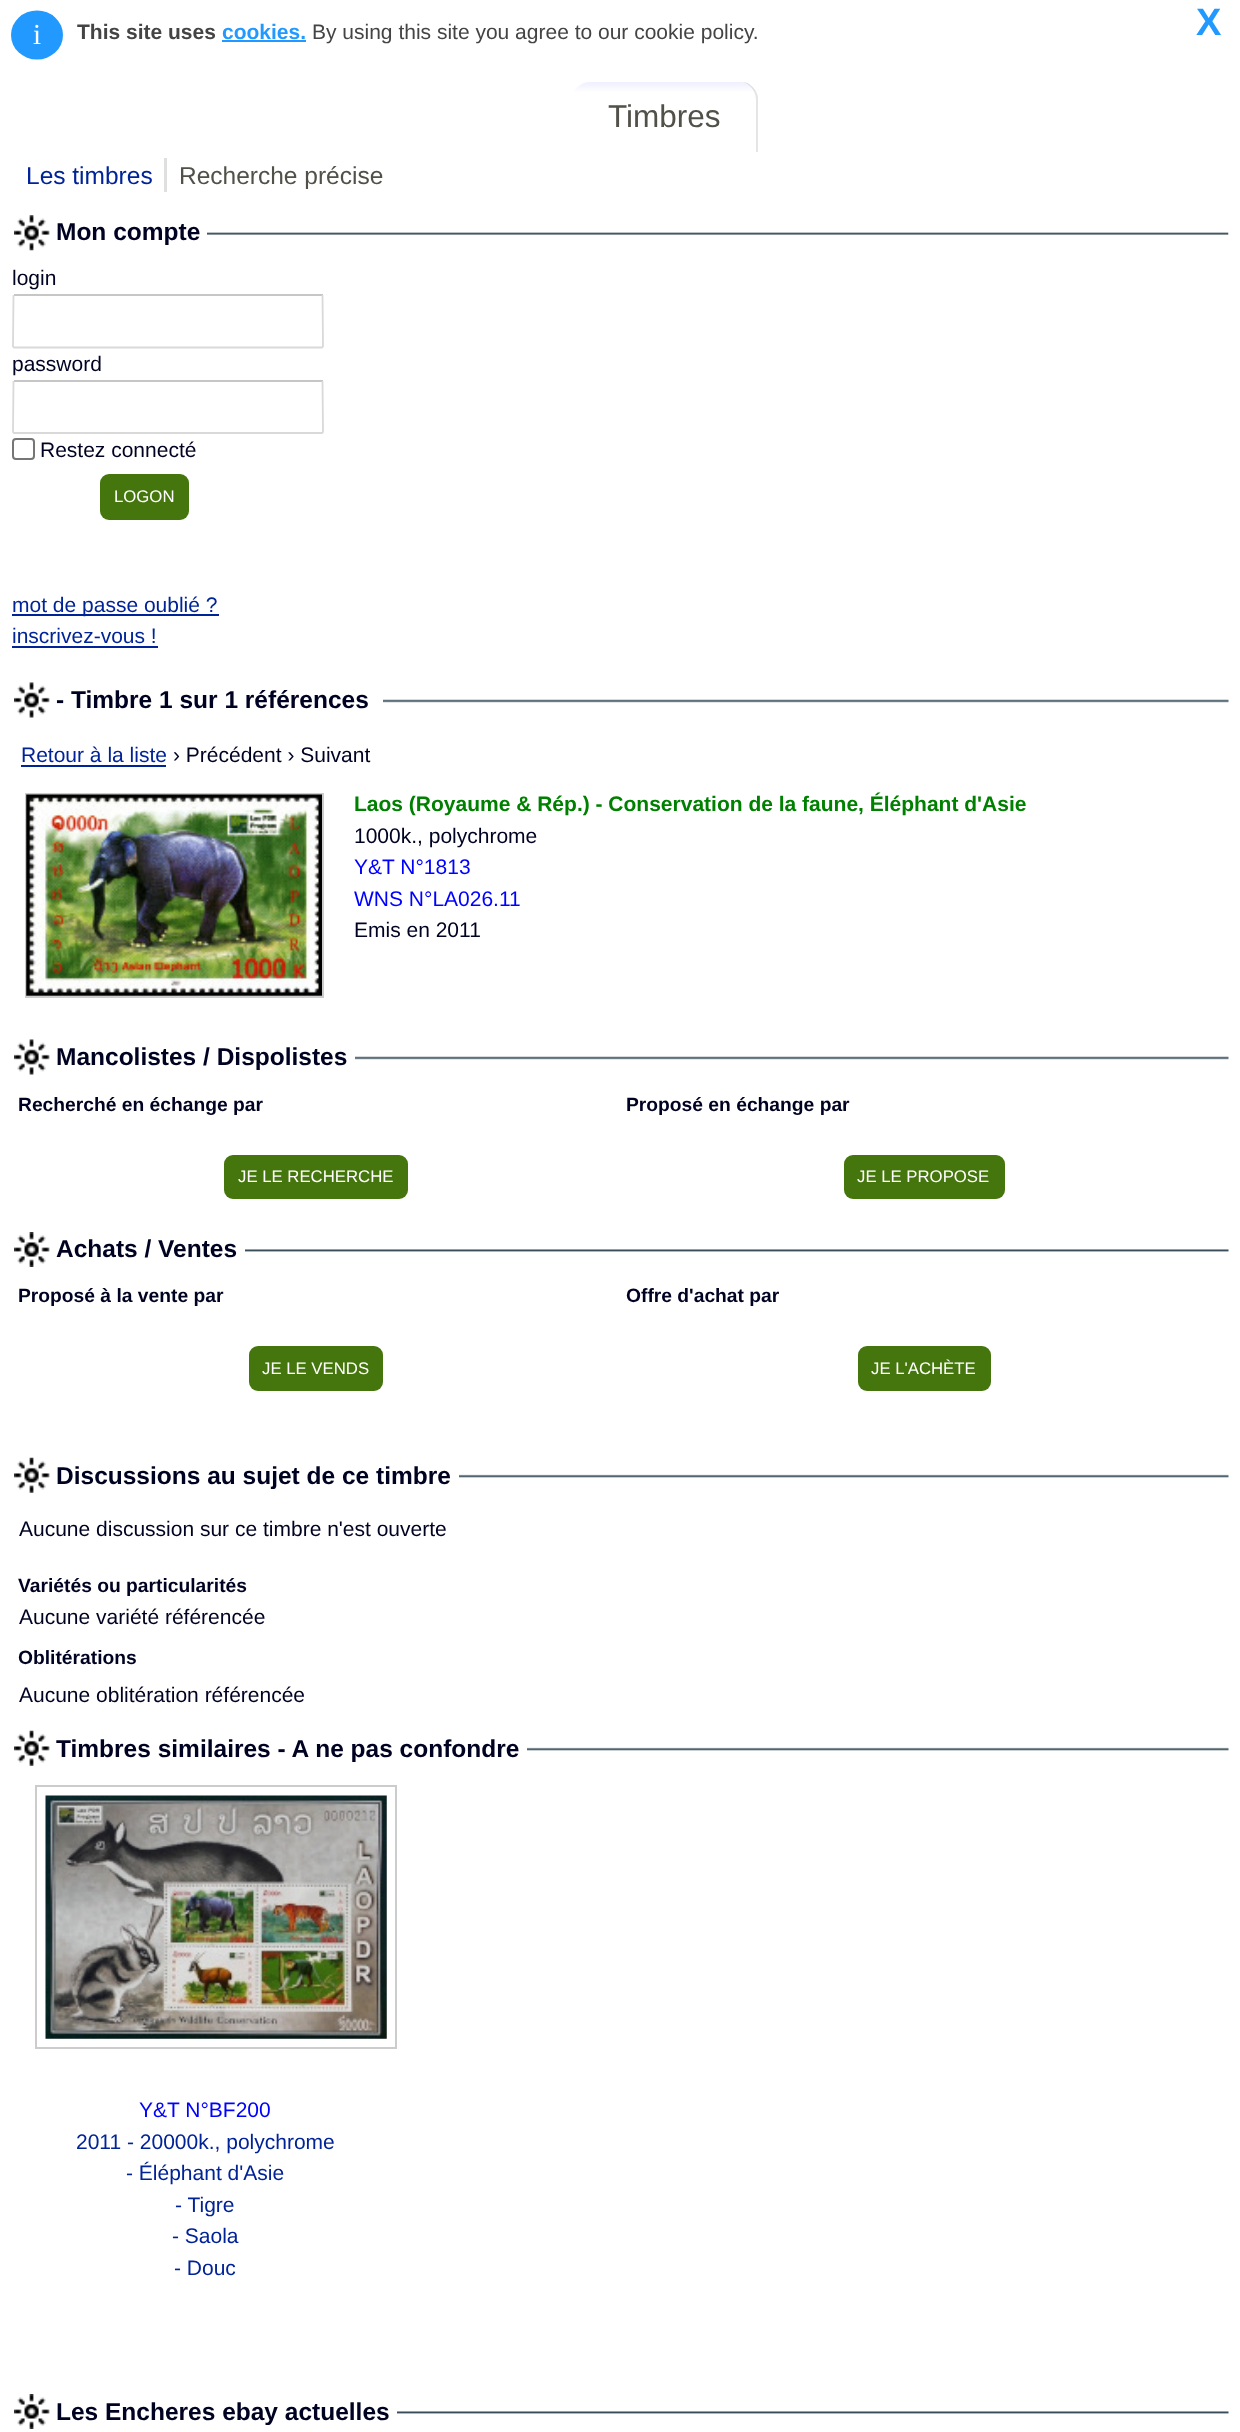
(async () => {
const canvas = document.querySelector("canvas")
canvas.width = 1240
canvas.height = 2432
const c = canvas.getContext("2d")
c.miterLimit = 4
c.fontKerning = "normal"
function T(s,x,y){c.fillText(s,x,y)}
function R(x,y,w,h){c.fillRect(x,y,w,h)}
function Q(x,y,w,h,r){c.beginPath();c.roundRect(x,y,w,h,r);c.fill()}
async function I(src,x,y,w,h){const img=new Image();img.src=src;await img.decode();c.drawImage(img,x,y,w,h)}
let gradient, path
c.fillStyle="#fff"
R(0,0,1240,2432)
c.fillStyle="#29f"
c.beginPath()
c.ellipse(37,35,26,24.5,0,0,7)
c.fill()
c.font="29px Liberation Serif"
c.fillStyle="#fff"
T("i",33,44)
c.font="bold 21px Liberation Sans"
c.fillStyle="#444"
T("This site uses",77,39)
c.fillStyle="#29f"
T("cookies.",222,39)
R(222,40,84,2)
c.font="21px Liberation Sans"
c.fillStyle="#444"
T("By using this site you agree to our cookie policy.",312,39)
c.font="bold 38px Liberation Sans"
c.fillStyle="#29f"
T("X",1196,35)
gradient = c.createLinearGradient(665,82,665,152)
gradient.addColorStop(0,"#efefff")
gradient.addColorStop(.15,"#fff")
c.fillStyle = gradient
c.beginPath()
c.roundRect(572,82,186,70,[18,18,0,0])
c.fill()
c.fillStyle="#0000001a"
path = new Path2D("M758 97v55h-2v-52c0-9-6-16-13-18c7 0 14 8 15 15z")
c.fill(path)
c.font="31.5px Liberation Sans"
c.fillStyle="#515149"
T("Timbres",608,127)
c.font="24.5px Liberation Sans"
c.fillStyle="#002398"
T("Les timbres",26,184)
c.fillStyle="#dfdfdf"
R(164,158,3,34)
c.fillStyle="#515149"
T("Recherche précise",179,184)
await I("1.png",14,215,1215,36)
c.fillStyle="#fff"
R(60,232,147,3)
c.font="bold 24.5px Liberation Sans"
c.fillStyle="#000222"
T("Mon compte",56,240)
c.font="21px Liberation Sans"
T("login",12,285)
c.fillStyle="#c6c6c6"
R(14,294,309,2)
path = new Path2D("M322.5 295l.5 51.5l-1 1h-308l-1-1l.5-51.5")
c.strokeStyle="#d9d9d9"
c.lineWidth=1.8
c.stroke(path)
c.fillStyle="#000222"
T("password",12,371)
c.fillStyle="#c6c6c6"
R(14,380,309,2)
path = new Path2D("M322.5 381l.5 51l-1 1h-308l-1-1l.5-51")
c.stroke(path)
c.beginPath()
c.roundRect(13,439,21,20,3)
c.strokeStyle="#767676"
c.lineWidth=2
c.stroke()
c.fillStyle="#000222"
T("Restez connecté",40,457)
c.fillStyle="#45760d"
Q(100,474,89,46,9)
c.font="16.75px Liberation Sans"
c.fillStyle="#fff"
T("LOGON",114,502)
c.fillStyle="#002398"
R(12,614,207,2)
c.font="21px Liberation Sans"
T("mot de passe oublié ?",12,612)
T("inscrivez-vous !",12,643)
R(12,646,146,2)
await I("2.png",14,682,1215,36)
c.fillStyle="#fff"
R(60,699,323,4)
c.font="bold 24.5px Liberation Sans"
c.fillStyle="#000222"
T("- Timbre 1 sur 1 références",56,708)
c.font="21px Liberation Sans"
c.fillStyle="#002398"
T("Retour à la liste",21,762)
R(21,765,145,2)
c.fillStyle="#000222"
T("› Précédent › Suivant",173,762)
c.strokeStyle="#ccc"
c.strokeRect(26,794,297,203)
await I("3.png",26,794,296,202)
c.font="bold 21px Liberation Sans"
c.fillStyle="#008000"
T("Laos (Royaume & Rép.) - Conservation de la faune, Éléphant d'Asie",354,811)
c.font="21px Liberation Sans"
c.fillStyle="#000222"
T("1000k., polychrome",354,843)
c.fillStyle="#00f"
T("Y&T N°1813",354,874)
T("WNS N°LA026.11",354,906)
c.fillStyle="#000222"
T("Emis en 2011",354,937)
await I("2.png",14,1039,1215,36)
c.fillStyle="#fff"
R(60,1056,295,4)
c.font="bold 24.5px Liberation Sans"
c.fillStyle="#000222"
T("Mancolistes / Dispolistes",56,1065)
c.font="bold 19.25px Liberation Sans"
T("Recherché en échange par",18,1111)
T("Proposé en échange par",626,1111)
c.fillStyle="#45760d"
Q(224,1155,184,44,9)
c.font="16.75px Liberation Sans"
c.fillStyle="#fff"
T("JE LE RECHERCHE",238,1182)
c.fillStyle="#45760d"
Q(844,1155,161,44,9)
c.fillStyle="#fff"
T("JE LE PROPOSE",857,1182)
await I("4.png",14,1232,1215,35)
R(60,1249,185,3)
c.font="bold 24.5px Liberation Sans"
c.fillStyle="#000222"
T("Achats / Ventes",56,1257)
c.font="bold 19.25px Liberation Sans"
T("Proposé à la vente par",18,1302)
T("Offre d'achat par",626,1302)
c.fillStyle="#45760d"
Q(249,1346,134,45,9)
c.font="16.75px Liberation Sans"
c.fillStyle="#fff"
T("JE LE VENDS",262,1374)
c.fillStyle="#45760d"
Q(858,1346,133,45,9)
c.fillStyle="#fff"
T("JE L'ACHÈTE",871,1374)
await I("5.png",14,1457,1215,36)
R(60,1474,399,4)
c.font="bold 24.5px Liberation Sans"
c.fillStyle="#000222"
T("Discussions au sujet de ce timbre",56,1484)
c.font="21px Liberation Sans"
T("Aucune discussion sur ce timbre n'est ouverte",19,1536)
c.font="bold 19.25px Liberation Sans"
T("Variétés ou particularités",18,1592)
c.font="21px Liberation Sans"
T("Aucune variété référencée",19,1624)
c.font="bold 19.25px Liberation Sans"
T("Oblitérations",18,1664)
c.font="21px Liberation Sans"
T("Aucune oblitération référencée",19,1702)
await I("5.png",14,1730,1215,36)
c.fillStyle="#fff"
R(60,1747,467,4)
c.font="bold 24.5px Liberation Sans"
c.fillStyle="#000222"
T("Timbres similaires - A ne pas confondre",56,1757)
c.strokeRect(36,1786,360,262)
await I("6.png",45,1795,342,244)
c.font="21px Liberation Sans"
c.fillStyle="#00f"
T("Y&T N°BF200",139,2117)
c.fillStyle="#002398"
T("2011 - 20000k., polychrome",76,2149)
T("- Éléphant d'Asie",126,2180)
T("- Tigre",175,2212)
T("- Saola",172,2243)
T("- Douc",174,2275)
await I("4.png",14,2394,1215,35)
c.fillStyle="#fff"
R(60,2411,337,3)
c.font="bold 24.5px Liberation Sans"
c.fillStyle="#000222"
T("Les Encheres ebay actuelles",56,2420)
})()
